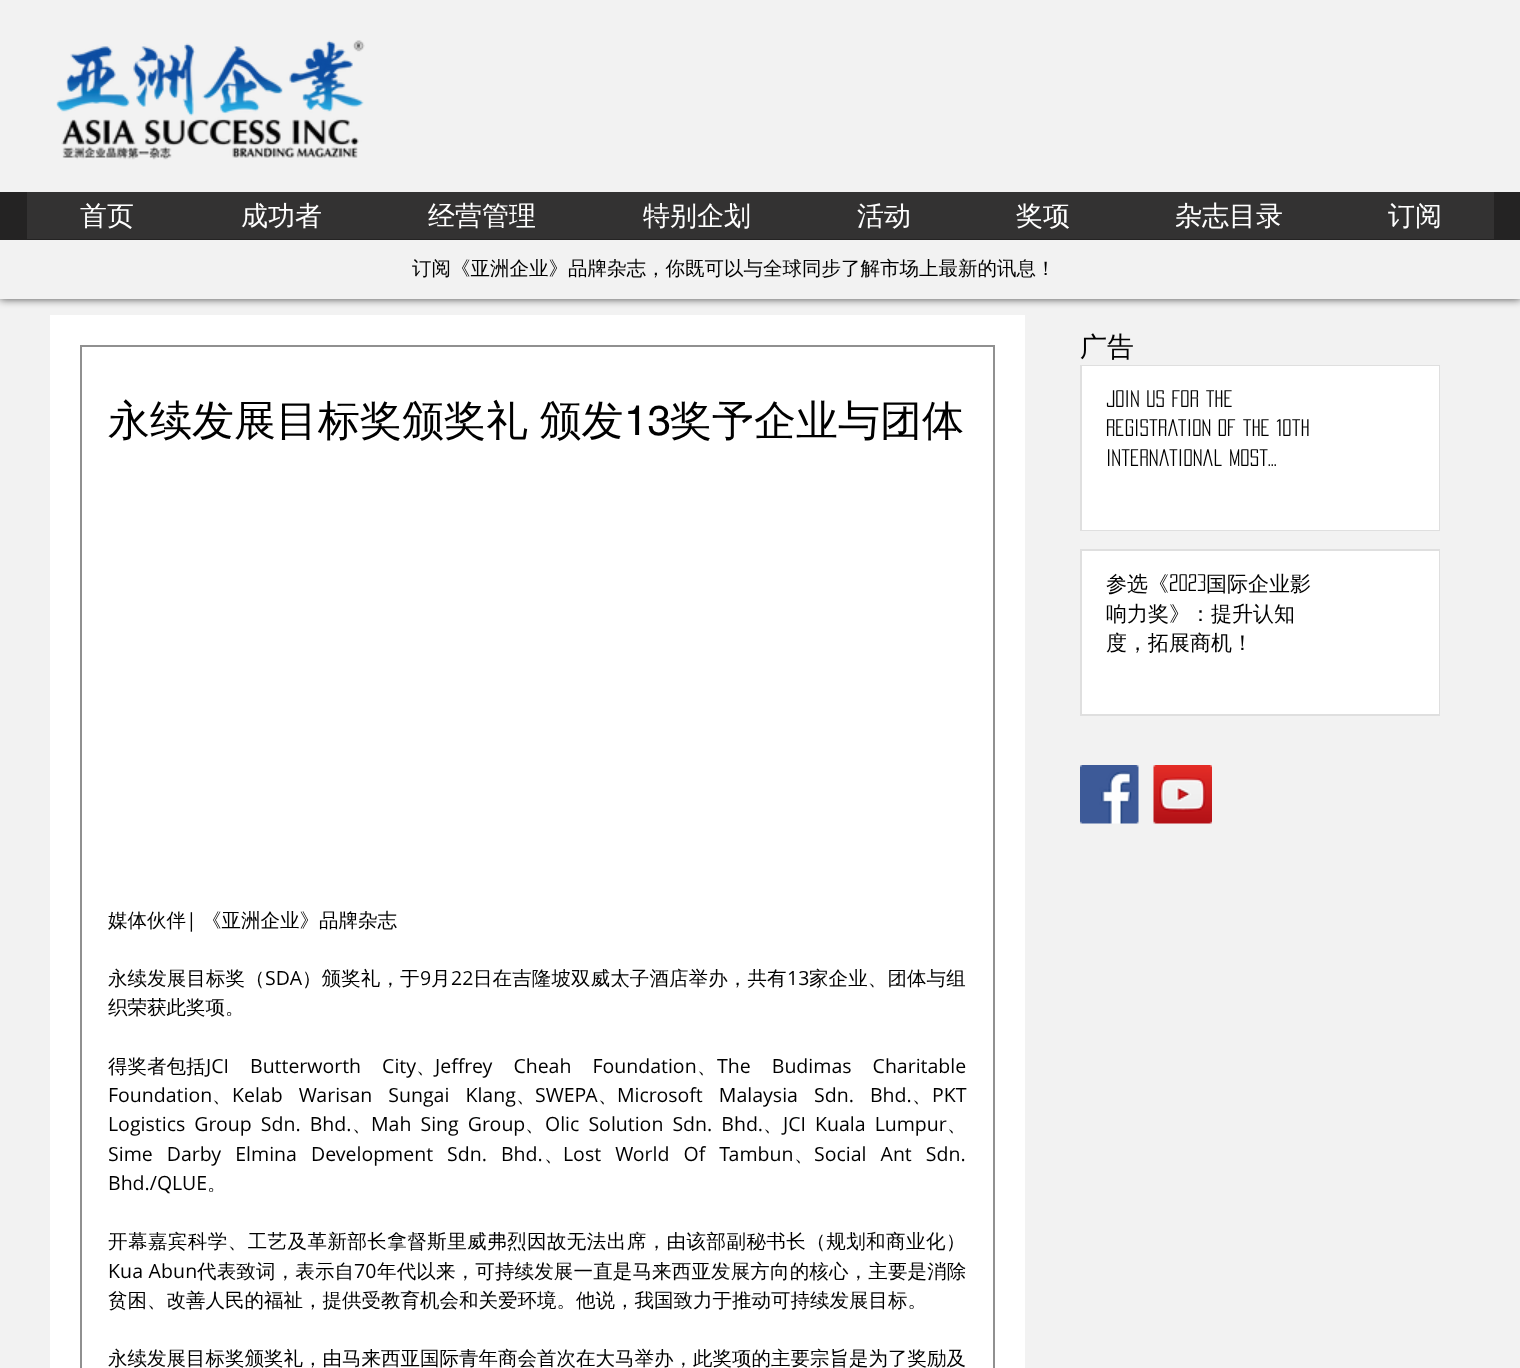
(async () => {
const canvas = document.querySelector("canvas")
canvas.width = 1520
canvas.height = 1368
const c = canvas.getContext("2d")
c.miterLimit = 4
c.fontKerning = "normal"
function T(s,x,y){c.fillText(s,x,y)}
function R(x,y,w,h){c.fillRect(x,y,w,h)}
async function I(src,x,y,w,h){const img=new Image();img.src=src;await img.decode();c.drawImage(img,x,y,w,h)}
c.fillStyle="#f2f2f2"
R(0,0,1520,1368)
c.fillStyle="#000000b3"
c.filter="blur(4px)"
c.beginPath()
c.rect(0,0,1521,299)
c.fill()
c.filter="none"
c.fillStyle="#f2f2f2"
R(0,0,1520,299)
await I("1.png",56,40,309,120)
c.fillStyle="#242323"
R(0,192,1520,48)
c.fillStyle="#333232"
R(27,192,1467,47)
c.font="500 27px WenQuanYi Zen Hei"
c.fillStyle="#fff"
T("首页",80,225)
T("成功者",241,225)
T("经营管理",428,225)
T("特别企划",643,225)
T("活动",857,225)
T("奖项",1016,225)
T("杂志目录",1175,225)
T("订阅",1388,225)
c.font="500 19.5px WenQuanYi Zen Hei"
c.fillStyle="#000"
T("订阅《亚洲企业》品牌杂志，你既可以与全球同步了解市场上最新的讯息！",412,275)
c.font="500 27px WenQuanYi Zen Hei"
T("广告",1080,356)
c.fillStyle="#fff"
R(50,315,975,1053)
c.strokeStyle="#909090"
c.lineWidth=2
c.strokeRect(81,346,913,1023)
c.wordSpacing="-1px"
c.font="500 42px WenQuanYi Zen Hei"
c.fillStyle="#000"
T("永续发展目标奖颁奖礼 颁发",108,435)
c.wordSpacing="0px"
c.font="42px helvetica"
T("13",624,435)
c.font="500 42px WenQuanYi Zen Hei"
T("奖予企业与团体",670,435)
c.font="500 19.5px WenQuanYi Zen Hei"
T("媒体伙伴",108,927)
c.font="19.5px Open Sans"
T("|",186,927)
c.font="500 19.5px WenQuanYi Zen Hei"
T("《亚洲企业》品牌杂志",202,927)
c.letterSpacing="0.1px"
T("永续发展目标奖（",108,985)
c.font="19.5px Open Sans"
T("SDA",265,985)
c.font="500 19.5px WenQuanYi Zen Hei"
T("）颁奖礼，于",302,985)
c.font="19.5px Open Sans"
T("9",420,985)
c.font="500 19.5px WenQuanYi Zen Hei"
T("月",431,985)
c.font="19.5px Open Sans"
T("22",451,985)
c.font="500 19.5px WenQuanYi Zen Hei"
T("日在吉隆坡双威太子酒店举办，共有",473,985)
c.font="19.5px Open Sans"
T("13",787,985)
c.font="500 19.5px WenQuanYi Zen Hei"
T("家企业、团体与组",809,985)
c.letterSpacing="0px"
T("织荣获此奖项。",108,1014)
T("得奖者包括",108,1073)
c.wordSpacing="16px"
c.font="19.5px Open Sans"
T("JCI Butterworth City",206,1073)
c.wordSpacing="0px"
c.font="500 19.5px WenQuanYi Zen Hei"
T("、",416,1073)
c.wordSpacing="16px"
c.font="19.5px Open Sans"
T("Jeffrey Cheah Foundation",435,1073)
c.wordSpacing="0px"
c.font="500 19.5px WenQuanYi Zen Hei"
T("、",697,1073)
c.wordSpacing="16px"
c.font="19.5px Open Sans"
T("The Budimas Charitable",717,1073)
c.wordSpacing="0px"
T("Foundation",108,1102)
c.wordSpacing="11px"
T("Kelab Warisan Sungai Klang",232,1102)
c.wordSpacing="0px"
T("SWEPA",535,1102)
c.wordSpacing="11px"
T("Microsoft Malaysia Sdn. Bhd.",617,1102)
c.wordSpacing="0px"
T("PKT",932,1102)
c.font="500 19.5px WenQuanYi Zen Hei"
T("、",212,1102)
T("、",516,1102)
T("、",598,1102)
T("、",912,1102)
c.wordSpacing="4px"
c.font="19.5px Open Sans"
T("Logistics Group Sdn. Bhd.",108,1131)
c.wordSpacing="0px"
c.font="500 19.5px WenQuanYi Zen Hei"
T("、",352,1131)
c.wordSpacing="4px"
c.font="19.5px Open Sans"
T("Mah Sing Group",371,1131)
c.wordSpacing="0px"
c.font="500 19.5px WenQuanYi Zen Hei"
T("、",525,1131)
c.wordSpacing="4px"
c.font="19.5px Open Sans"
T("Olic Solution Sdn. Bhd.",545,1131)
c.wordSpacing="0px"
c.font="500 19.5px WenQuanYi Zen Hei"
T("、",763,1131)
c.wordSpacing="4px"
c.font="19.5px Open Sans"
T("JCI Kuala Lumpur",783,1131)
c.wordSpacing="0px"
c.font="500 19.5px WenQuanYi Zen Hei"
T("、",947,1131)
c.wordSpacing="9px"
c.font="19.5px Open Sans"
T("Sime Darby Elmina Development Sdn. Bhd.",108,1161)
c.wordSpacing="0px"
c.font="500 19.5px WenQuanYi Zen Hei"
T("、",544,1161)
c.wordSpacing="9px"
c.font="19.5px Open Sans"
T("Lost World Of Tambun",563,1161)
c.wordSpacing="0px"
c.font="500 19.5px WenQuanYi Zen Hei"
T("、",794,1161)
c.wordSpacing="9px"
c.font="19.5px Open Sans"
T("Social Ant Sdn.",814,1161)
c.wordSpacing="0px"
T("Bhd./QLUE",108,1190)
c.font="500 19.5px WenQuanYi Zen Hei"
T("。",207,1190)
c.letterSpacing="0.45px"
T("开幕嘉宾科学、工艺及革新部长拿督斯里威弗烈因故无法出席，由该部副秘书长（规划和商业化）",108,1248)
c.letterSpacing="0.15px"
c.font="19.5px Open Sans"
T("Kua Abun",108,1278)
c.font="500 19.5px WenQuanYi Zen Hei"
T("代表致词，表示自",197,1278)
c.font="19.5px Open Sans"
T("70",354,1278)
c.font="500 19.5px WenQuanYi Zen Hei"
T("年代以来，可持续发展一直是马来西亚发展方向的核心，主要是消除",377,1278)
c.letterSpacing="0px"
T("贫困、改善人民的福祉，提供受教育机会和关爱环境。他说，我国致力于推动可持续发展目标。",108,1307)
T("永续发展目标奖颁奖礼，由马来西亚国际青年商会首次在大马举办，此奖项的主要宗旨是为了奖励及",108,1365)
c.strokeStyle="#dfdfdf"
c.strokeRect(1081,366,358,164)
c.fillStyle="#fff"
R(1082,366,357,164)
c.font="21px 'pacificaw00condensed'"
c.fillStyle="#000"
T("Join us for the",1106,407)
T("registration of the 10th",1106,436)
T("International Most…",1106,466)
c.strokeRect(1081,550,358,165)
c.fillStyle="#fff"
R(1082,551,357,163)
c.font="500 21px WenQuanYi Zen Hei"
c.fillStyle="#000"
T("参选《",1106,591)
c.font="21px 'pacificaw00condensed'"
T("2023",1169,591)
c.font="500 21px WenQuanYi Zen Hei"
T("国际企业影",1206,591)
T("响力奖》：提升认知",1106,621)
T("度，拓展商机！",1106,650)
await I("2.png",1080,765,59,59)
await I("3.png",1153,765,59,59)
})()
